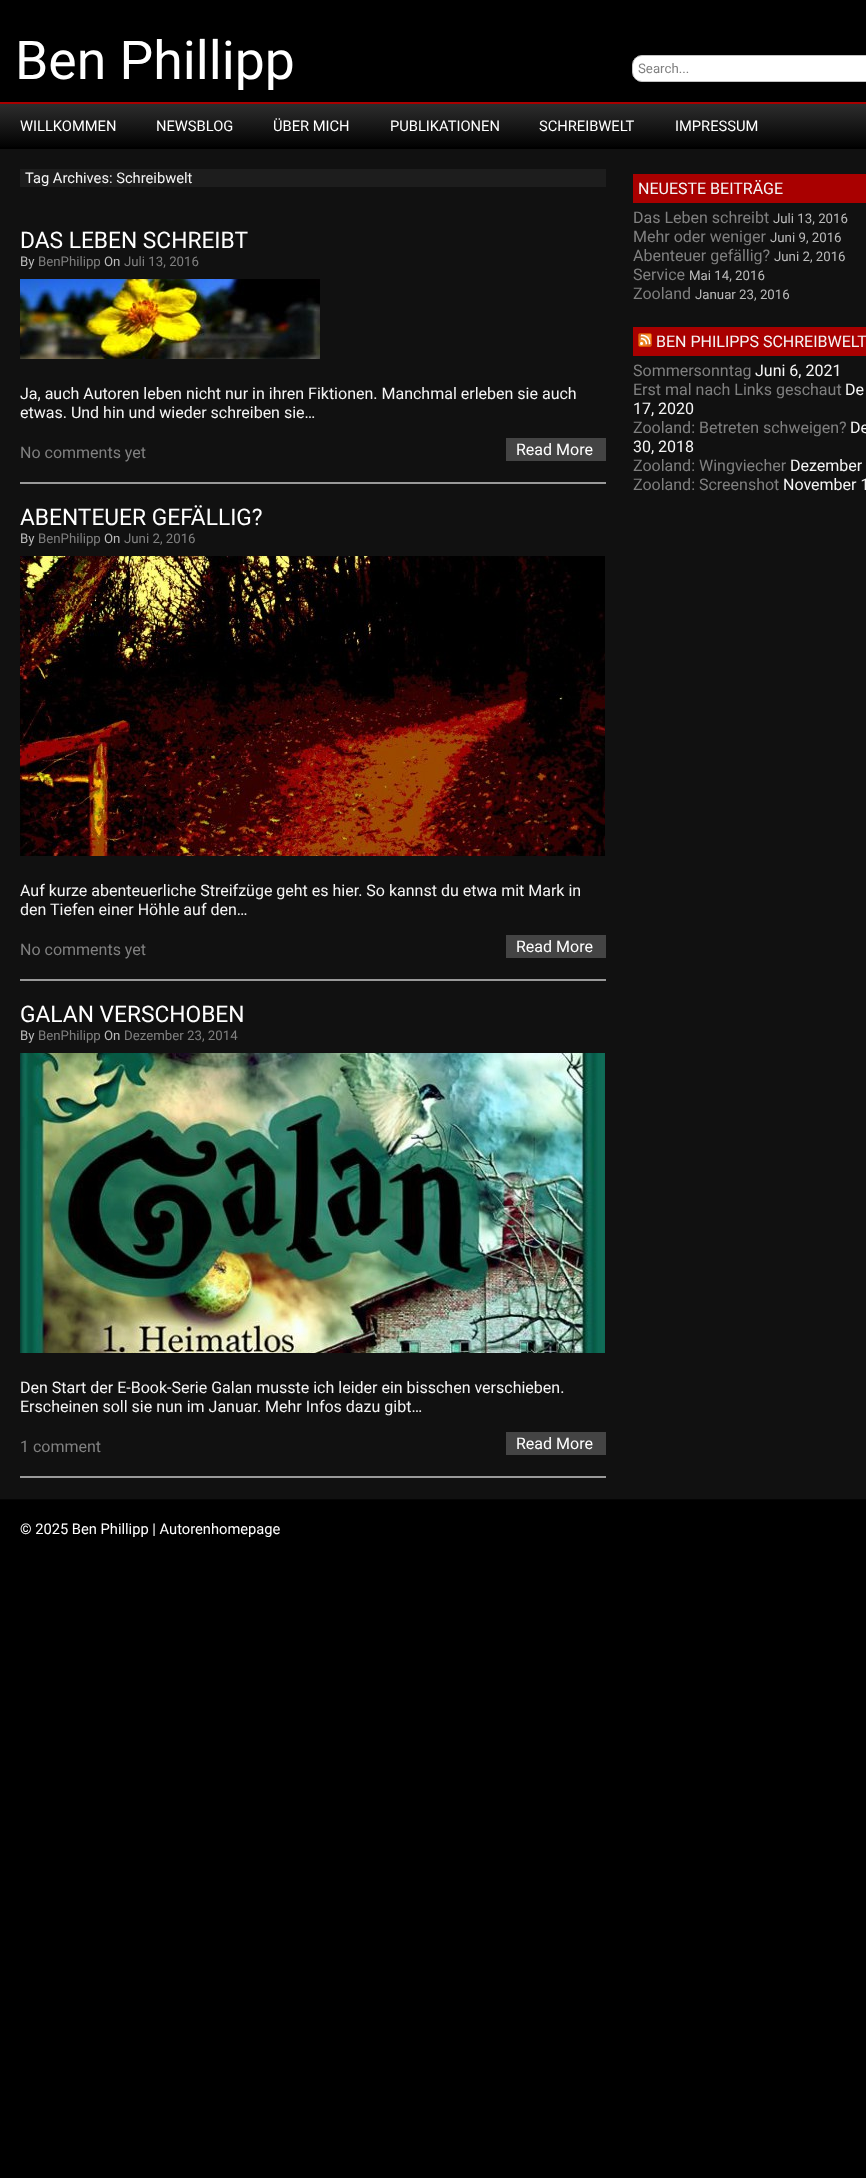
(async () => {
const canvas = document.querySelector("canvas")
canvas.width = 866
canvas.height = 2178
const c = canvas.getContext("2d")
c.miterLimit = 4
c.fontKerning = "normal"
function T(s,x,y){c.fillText(s,x,y)}
function R(x,y,w,h){c.fillRect(x,y,w,h)}
async function I(src,x,y,w,h){const img=new Image();img.src=src;await img.decode();c.drawImage(img,x,y,w,h)}
let gradient
c.fillStyle="#000"
R(0,0,866,2178)
c.font="53.5px Roboto"
c.fillStyle="#fff"
T("Ben Phillipp",15,79)
c.beginPath()
c.roundRect(632.5,55.5,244,26,9.5)
c.fill()
c.strokeStyle="#c3c3c3"
c.stroke()
c.font="13.25px Roboto"
c.fillStyle="#808080"
T("Search...",638,73)
c.fillStyle="#111"
R(0,149,866,1350)
c.fillStyle="#a90000"
R(0,102,866,2)
gradient = c.createLinearGradient(480,104,480,149)
gradient.addColorStop(0,"#2d2d2d")
gradient.addColorStop(1,"#000")
c.fillStyle = gradient
R(0,104,866,43)
c.font="14.7px Roboto"
c.fillStyle="#fff"
T("WILLKOMMEN",20,131)
T("NEWSBLOG",156,131)
T("ÜBER MICH",273,131)
T("PUBLIKATIONEN",390,131)
T("SCHREIBWELT",539,131)
T("IMPRESSUM",675,131)
c.fillStyle="#1d1d1d"
R(20,169,586,18)
c.fillStyle="#f5f5f5"
T("Tag Archives: Schreibwelt",25,183)
c.font="22.75px Roboto"
c.fillStyle="#fff"
T("DAS LEBEN SCHREIBT",20,248)
c.font="13.25px Roboto"
c.fillStyle="#bbb"
T("By",20,266)
c.fillStyle="#808080"
T("BenPhilipp",38,266)
c.fillStyle="#bbb"
T("On",104,266)
c.fillStyle="#808080"
T("Juli 13, 2016",124,266)
await I("1.png",20,279,300,80)
c.font="16px Roboto"
c.fillStyle="#f5f5f5"
T("Ja, auch Autoren leben nicht nur in ihren Fiktionen. Manchmal erleben sie auch",20,399)
T("etwas. Und hin und wieder schreiben sie…",20,418)
c.fillStyle="#808080"
T("No comments yet",20,458)
c.fillStyle="#444"
R(506,438,100,23)
c.fillStyle="#fff"
T("Read More",516,455)
c.fillStyle="#999"
R(20,482,586,2)
c.font="22.75px Roboto"
c.fillStyle="#fff"
T("ABENTEUER GEFÄLLIG?",20,525)
c.font="13.25px Roboto"
c.fillStyle="#bbb"
T("By",20,543)
c.fillStyle="#808080"
T("BenPhilipp",38,543)
c.fillStyle="#bbb"
T("On",104,543)
c.fillStyle="#808080"
T("Juni 2, 2016",124,543)
await I("2.png",20,556,585,300)
c.font="16px Roboto"
c.fillStyle="#f5f5f5"
T("Auf kurze abenteuerliche Streifzüge geht es hier. So kannst du etwa mit Mark in",20,896)
T("den Tiefen einer Höhle auf den…",20,915)
c.fillStyle="#808080"
T("No comments yet",20,955)
c.fillStyle="#444"
R(506,935,100,23)
c.fillStyle="#fff"
T("Read More",516,952)
c.fillStyle="#999"
R(20,979,586,2)
c.font="22.75px Roboto"
c.fillStyle="#fff"
T("GALAN VERSCHOBEN",20,1022)
c.font="13.25px Roboto"
c.fillStyle="#bbb"
T("By",20,1040)
c.fillStyle="#808080"
T("BenPhilipp",38,1040)
c.fillStyle="#bbb"
T("On",104,1040)
c.fillStyle="#808080"
T("Dezember 23, 2014",124,1040)
await I("3.png",20,1053,585,300)
c.font="16px Roboto"
c.fillStyle="#f5f5f5"
T("Den Start der E-Book-Serie Galan musste ich leider ein bisschen verschieben.",20,1393)
T("Erscheinen soll sie nun im Januar. Mehr Infos dazu gibt…",20,1412)
c.fillStyle="#808080"
T("1 comment",20,1452)
c.fillStyle="#444"
R(506,1432,100,23)
c.fillStyle="#fff"
T("Read More",516,1449)
c.fillStyle="#999"
R(20,1476,586,2)
c.fillStyle="#a90000"
R(633,174,233,29)
c.fillStyle="#f5f5f5"
T("NEUESTE BEITRÄGE",638,194)
c.fillStyle="#808080"
T("Das Leben schreibt",633,223)
c.font="13.25px Roboto"
c.fillStyle="#bbb"
T("Juli 13, 2016",773,223)
c.font="16px Roboto"
c.fillStyle="#808080"
T("Mehr oder weniger",633,242)
c.font="13.25px Roboto"
c.fillStyle="#bbb"
T("Juni 9, 2016",770,242)
c.font="16px Roboto"
c.fillStyle="#808080"
T("Abenteuer gefällig?",633,261)
c.font="13.25px Roboto"
c.fillStyle="#bbb"
T("Juni 2, 2016",774,261)
c.font="16px Roboto"
c.fillStyle="#808080"
T("Service",633,280)
c.font="13.25px Roboto"
c.fillStyle="#bbb"
T("Mai 14, 2016",689,280)
c.font="16px Roboto"
c.fillStyle="#808080"
T("Zooland",633,299)
c.font="13.25px Roboto"
c.fillStyle="#bbb"
T("Januar 23, 2016",695,299)
c.fillStyle="#a90000"
R(633,327,233,29)
await I("4.png",638,333,14,14)
c.font="16px Roboto"
c.fillStyle="#f5f5f5"
T("BEN PHILIPPS SCHREIBWELT",656,347)
c.fillStyle="#808080"
T("Sommersonntag",633,376)
c.fillStyle="#f5f5f5"
T("Juni 6, 2021",755,376)
c.fillStyle="#808080"
T("Erst mal nach Links geschaut",633,395)
c.fillStyle="#f5f5f5"
T("De",845,395)
T("17, 2020",633,414)
c.fillStyle="#808080"
T("Zooland: Betreten schweigen?",633,433)
c.fillStyle="#f5f5f5"
T("De",850,433)
T("30, 2018",633,452)
c.fillStyle="#808080"
T("Zooland: Wingviecher",633,471)
c.fillStyle="#f5f5f5"
T("Dezember",790,471)
c.fillStyle="#808080"
T("Zooland: Screenshot",633,490)
c.fillStyle="#f5f5f5"
T("November 1",783,490)
c.fillStyle="#050505"
R(0,1499,866,1)
c.font="14.7px Roboto"
c.fillStyle="#fff"
T("© 2025 Ben Phillipp | Autorenhomepage",20,1534)
})()
